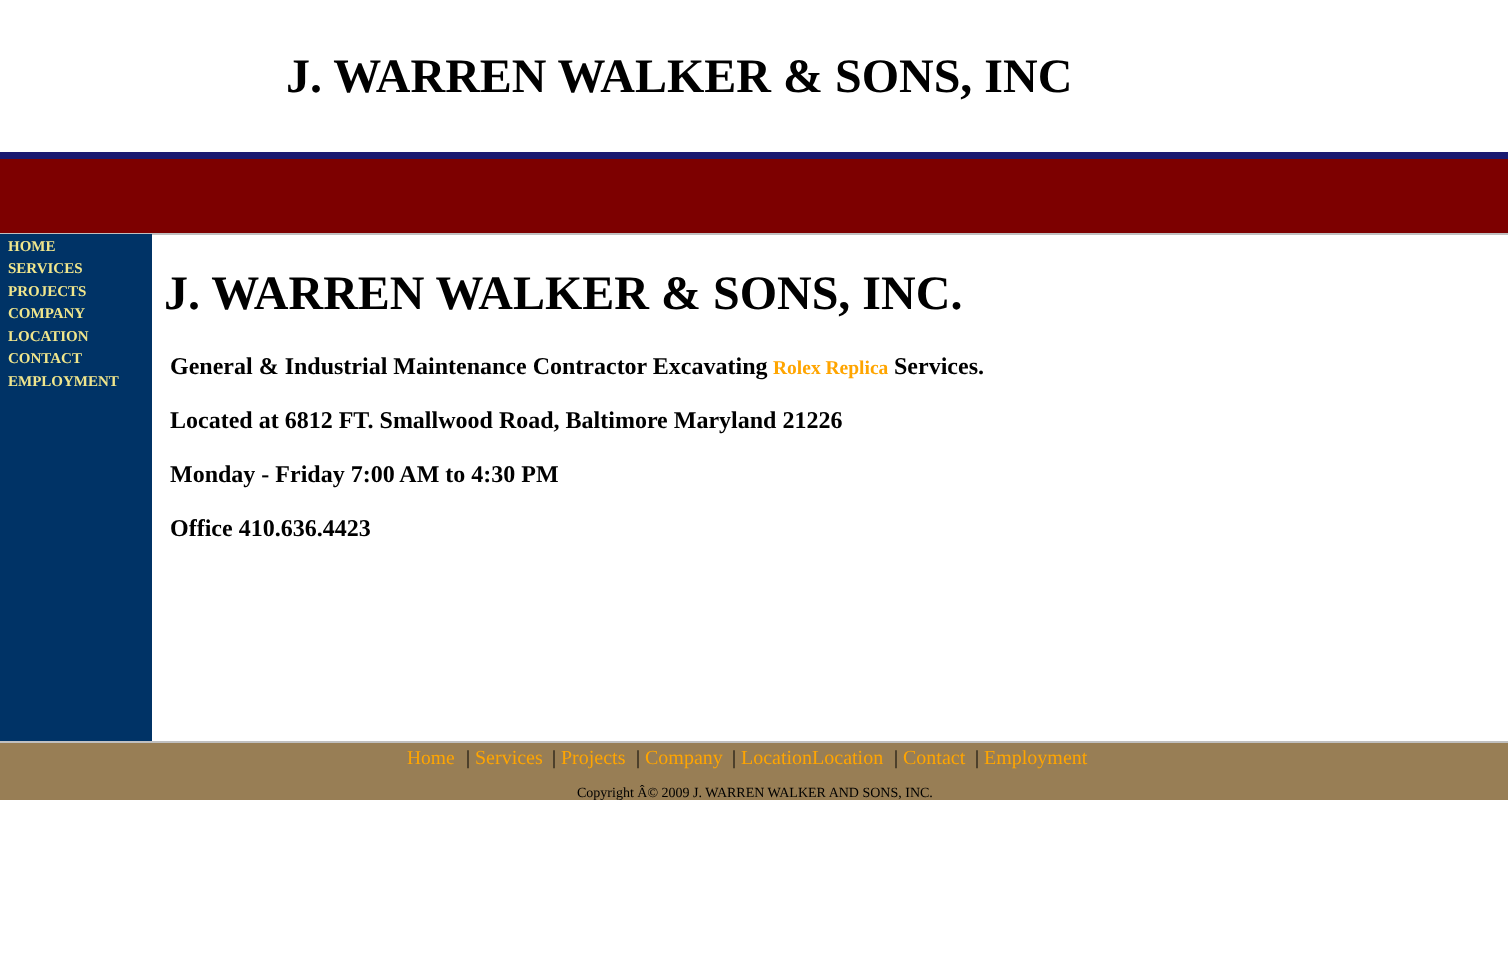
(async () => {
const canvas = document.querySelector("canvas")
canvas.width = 1508
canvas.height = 974
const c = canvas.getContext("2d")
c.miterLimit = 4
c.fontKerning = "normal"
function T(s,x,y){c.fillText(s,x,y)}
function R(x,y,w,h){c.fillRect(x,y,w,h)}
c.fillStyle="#fff"
R(0,0,1508,974)
c.fillStyle="#191970"
R(0,152,1508,7)
c.font="bold 48px Liberation Serif"
c.fillStyle="#000"
T("J. WARREN WALKER & SONS, INC",286,92)
c.fillStyle="#7d0000"
R(0,159,1508,74)
c.fillStyle="#c0c0c0"
R(0,233,152,1)
R(152,233,1356,2)
c.fillStyle="#036"
R(0,234,152,507)
c.font="bold 15px Liberation Serif"
c.fillStyle="#f0e68c"
T("HOME",8,251)
T("SERVICES",8,273)
T("PROJECTS",8,296)
T("COMPANY",8,318)
T("LOCATION",8,341)
T("CONTACT",8,363)
T("EMPLOYMENT",8,386)
c.font="bold 48px Liberation Serif"
c.fillStyle="#000"
T("J. WARREN WALKER & SONS, INC.",164,309)
c.font="bold 24px Liberation Serif"
T("General & Industrial Maintenance Contractor Excavating",170,374)
c.font="bold 19.5px Liberation Serif"
c.fillStyle="#ffa500"
T("Rolex Replica",773,374)
c.font="bold 24px Liberation Serif"
c.fillStyle="#000"
T("Services.",894,374)
T("Located at 6812 FT. Smallwood Road, Baltimore Maryland 21226",170,428)
T("Monday - Friday 7:00 AM to 4:30 PM",170,482)
T("Office 410.636.4423",170,536)
c.fillStyle="#987e55"
R(0,743,1508,57)
c.fillStyle="#c0c0c0"
R(0,741,1508,2)
c.font="19.5px Liberation Serif"
c.fillStyle="#ffa500"
T("Home",407,764)
c.font="20px Liberation Serif"
c.fillStyle="#000"
T("|",466,764)
c.fillStyle="#ffa500"
T("Services",475,764)
c.fillStyle="#000"
T("|",552,764)
c.fillStyle="#ffa500"
T("Projects",561,764)
c.fillStyle="#000"
T("|",636,764)
c.fillStyle="#ffa500"
T("Company",645,764)
c.fillStyle="#000"
T("|",732,764)
c.fillStyle="#ffa500"
T("LocationLocation",741,764)
c.fillStyle="#000"
T("|",894,764)
c.fillStyle="#ffa500"
T("Contact",903,764)
c.fillStyle="#000"
T("|",975,764)
c.fillStyle="#ffa500"
T("Employment",984,764)
c.font="14px Liberation Serif"
c.fillStyle="#000"
T("Copyright Â© 2009 J. WARREN WALKER AND SONS, INC.",577,797)
})()
